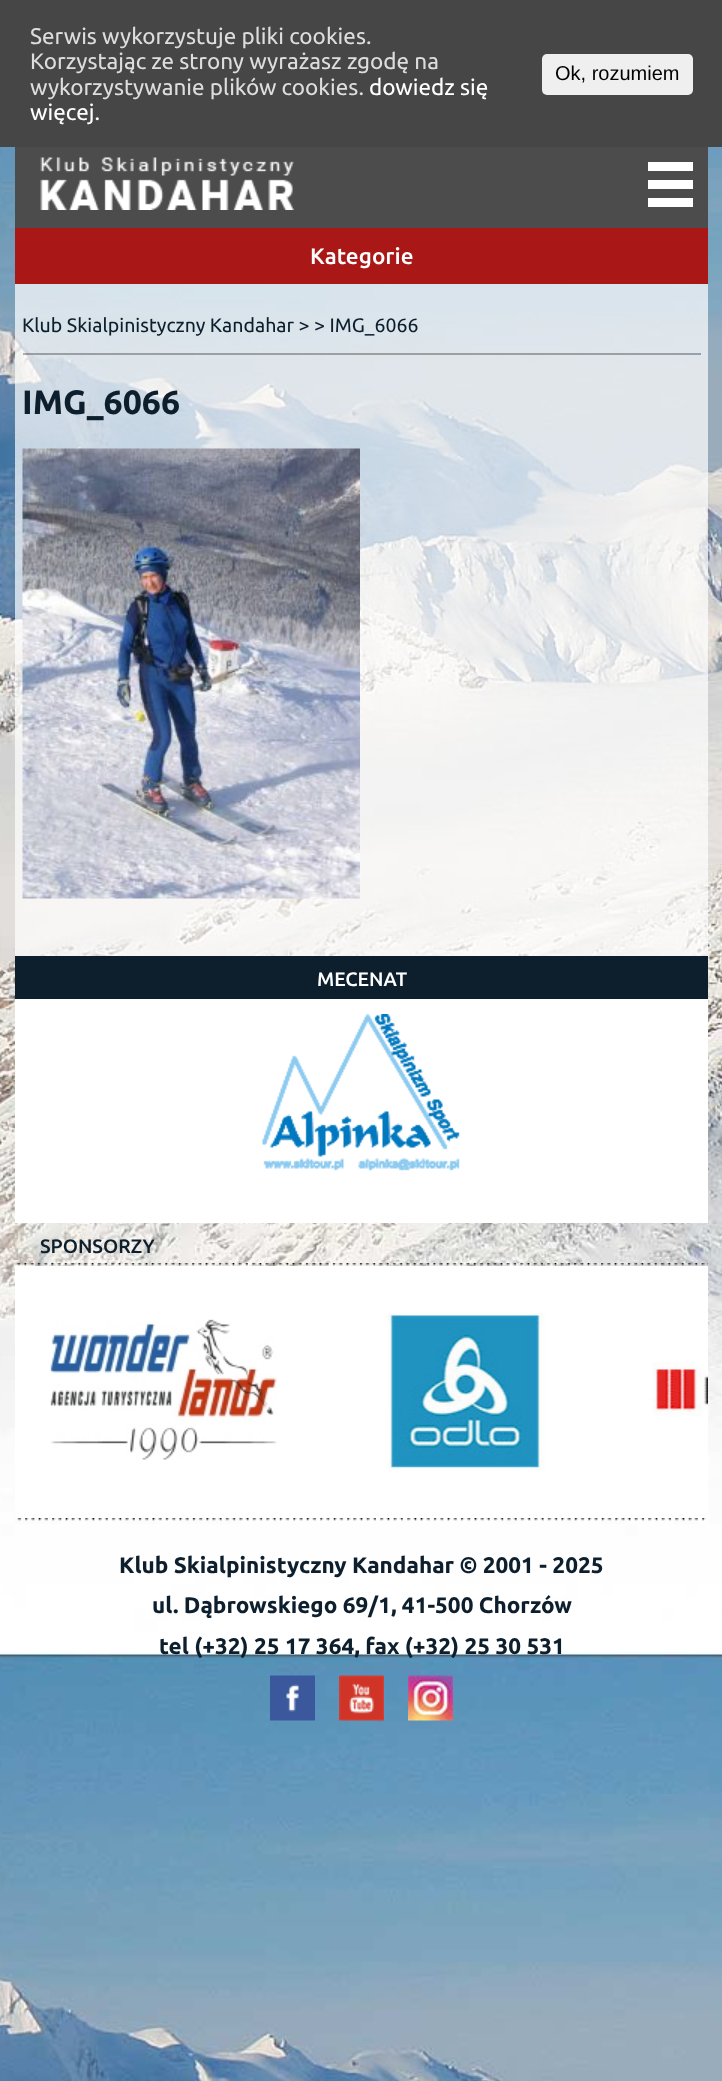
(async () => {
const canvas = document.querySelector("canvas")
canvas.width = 722
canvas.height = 2081
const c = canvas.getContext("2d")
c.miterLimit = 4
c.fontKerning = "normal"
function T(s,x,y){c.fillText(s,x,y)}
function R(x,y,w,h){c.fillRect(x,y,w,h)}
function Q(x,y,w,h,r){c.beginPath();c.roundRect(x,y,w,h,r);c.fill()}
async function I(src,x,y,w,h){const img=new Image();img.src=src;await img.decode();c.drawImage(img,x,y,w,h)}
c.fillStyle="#fff"
R(0,0,722,2081)
await I("1.png",0,147,722,1934)
c.fillStyle="#464646"
R(0,0,722,147)
c.font="22.5px Ubuntu"
c.fillStyle="#ddd"
T("Serwis wykorzystuje pliki cookies.",30,44)
T("Korzystając ze strony wyrażasz zgodę na",30,69)
T("wykorzystywanie plików cookies.",30,95)
c.fillStyle="#fff"
T("dowiedz się",369,95)
T("więcej.",30,120)
c.fillStyle="#efefef"
Q(542,54,151,41,5)
c.font="20px Liberation Sans"
c.fillStyle="#000"
T("Ok, rozumiem",555,80)
c.fillStyle="#4c4c4c"
R(15,147,693,81)
await I("2.png",40,157,254,53)
c.fillStyle="#fff"
R(648,162,45,9)
R(648,180,45,9)
R(648,198,45,9)
c.fillStyle="#a91817"
R(15,228,693,56)
c.font="500 22.5px Ubuntu"
c.fillStyle="#fff"
T("Kategorie",310,264)
c.fillStyle="#ffffffb3"
R(15,284,693,672)
c.fillStyle="#0000004d"
R(23,353,678,2)
c.font="19.5px Ubuntu"
c.fillStyle="#0d1f2d"
T("Klub Skialpinistyczny Kandahar > > IMG_6066",22,332)
c.font="bold 33.75px Ubuntu"
T("IMG_6066",22,414)
await I("3.png",22,448,338,451)
c.fillStyle="#fff"
R(15,999,693,224)
c.fillStyle="#0d1f2d"
R(15,956,693,43)
c.font="500 19.5px Ubuntu"
c.fillStyle="#fff"
T("MECENAT",317,986)
await I("4.png",262,1014,198,157)
await I("5.png",16,1263,692,3)
c.fillStyle="#0d1f2d"
T("SPONSORZY",40,1253)
c.fillStyle="#fff"
R(15,1266,693,252)
await I("6.png",50,1319,227,141)
await I("7.png",385,1313,160,157)
await I("8.png",652,1362,56,55)
await I("9.png",17,1518,689,3)
c.font="bold 22.5px Ubuntu"
c.fillStyle="#0d1f2d"
T("Klub Skialpinistyczny Kandahar © 2001 - 2025",119,1573)
T("ul. Dąbrowskiego 69/1, 41-500 Chorzów",152,1613)
T("tel (+32) 25 17 364, fax (+32) 25 30 531",159,1654)
await I("10.png",270,1675,45,46)
await I("11.png",339,1675,45,46)
await I("12.png",408,1675,45,46)
})()
